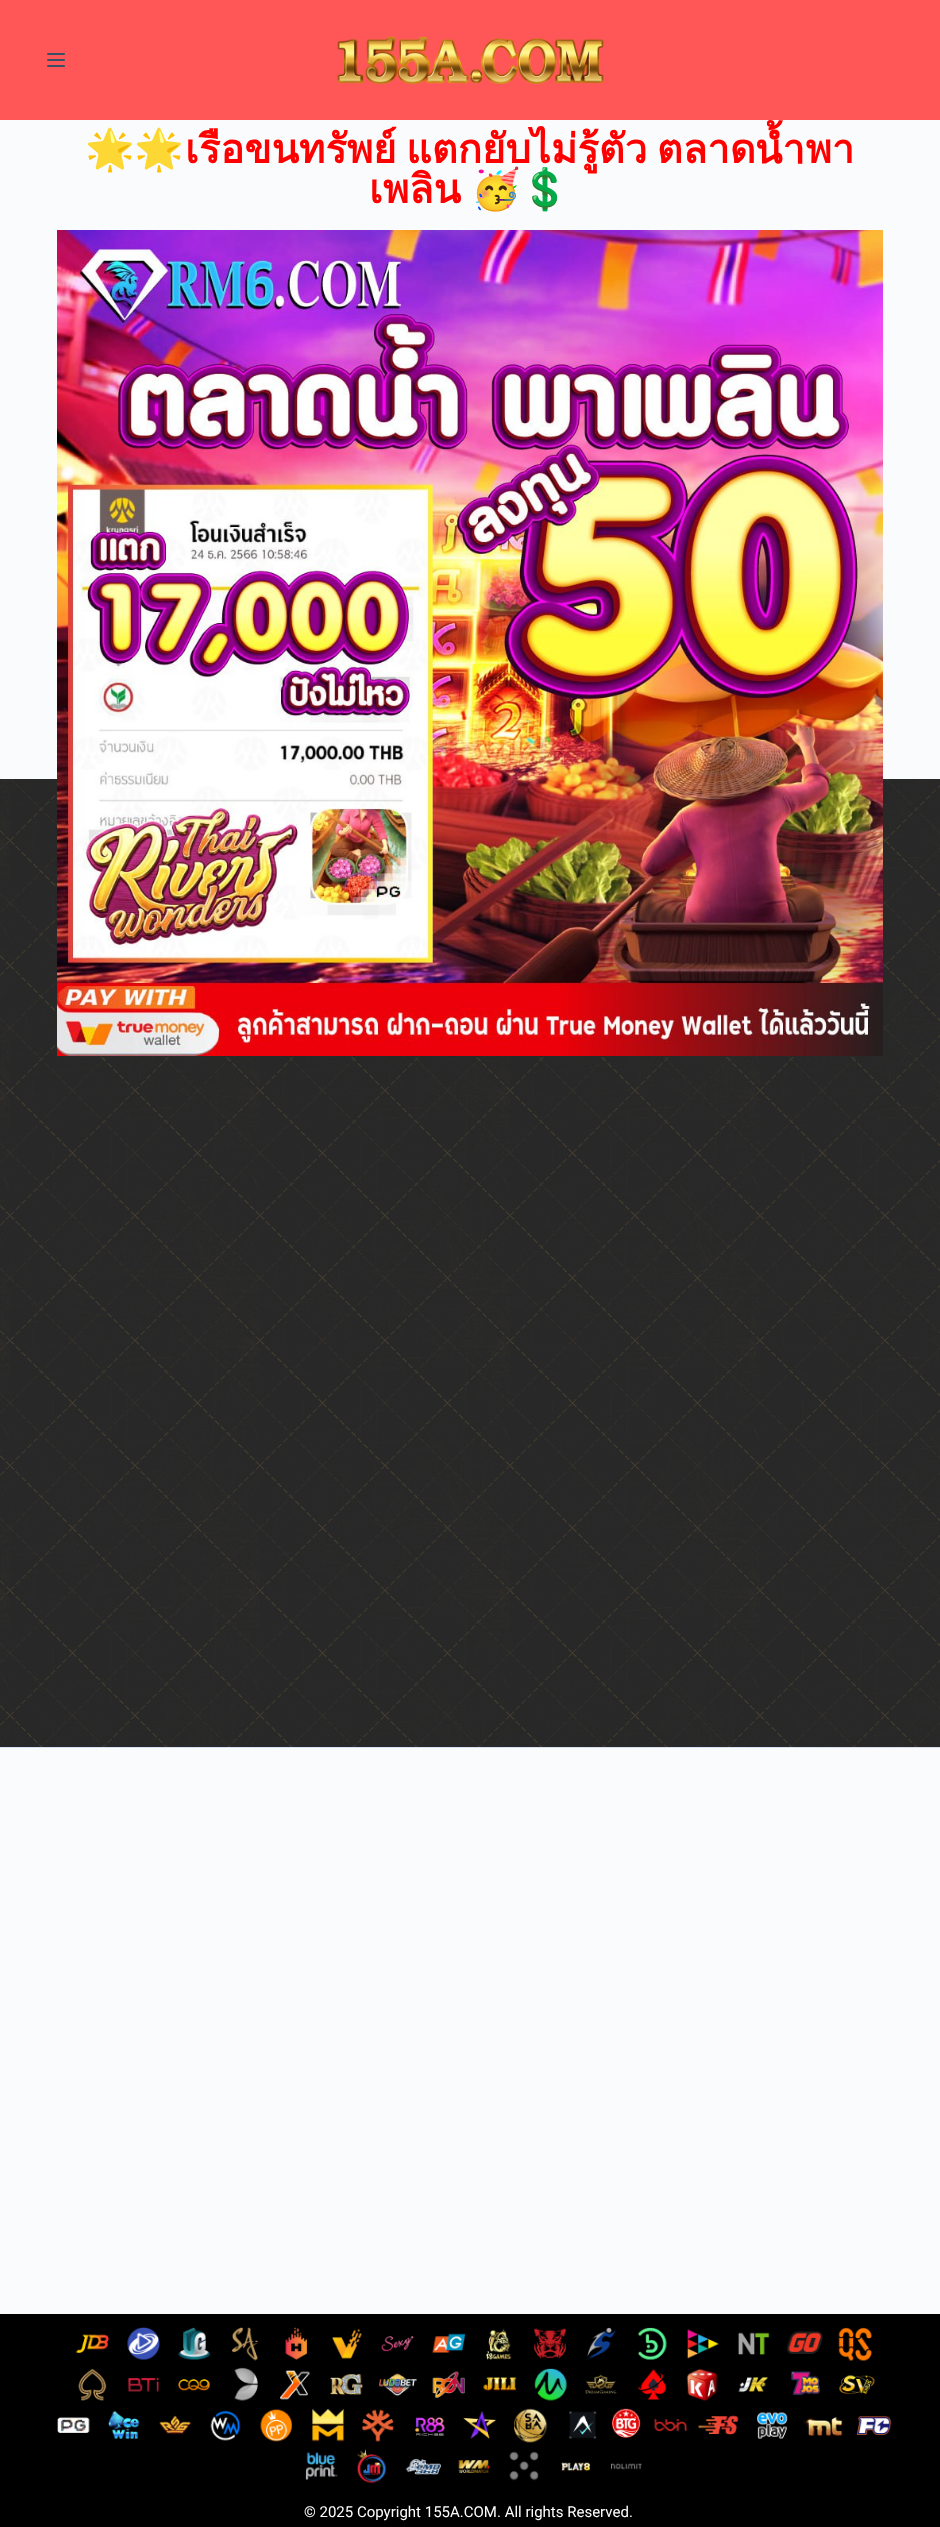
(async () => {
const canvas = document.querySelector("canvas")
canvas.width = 940
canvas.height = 2527
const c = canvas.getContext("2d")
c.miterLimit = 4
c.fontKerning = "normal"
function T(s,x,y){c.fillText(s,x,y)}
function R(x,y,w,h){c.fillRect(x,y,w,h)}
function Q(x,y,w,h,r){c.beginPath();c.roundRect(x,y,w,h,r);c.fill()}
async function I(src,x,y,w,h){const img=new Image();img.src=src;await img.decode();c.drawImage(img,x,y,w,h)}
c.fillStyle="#fafbfc"
R(0,0,940,2527)
await I("1.png",0,779,940,969)
c.fillStyle="#ff5757"
R(0,0,940,120)
c.fillStyle="#3a4f66"
Q(47,53,18,2,1)
Q(47,59,18,2,1)
Q(47,65,18,2,1)
await I("2.png",337,36,267,48)
c.font="bold 40px Noto Color Emoji"
c.fillStyle="#f00"
T("🌟🌟",85,163)
c.wordSpacing="-4px"
c.font="bold 40px Loma"
T("เรือขนทรัพย์ แตกยับไม่รู้ตัว ตลาดน้ำพา",185,163)
c.wordSpacing="0px"
T("เพลิน",369,203)
c.font="bold 40px Noto Color Emoji"
T("🥳💲",471,203)
await I("3.png",57,230,826,826)
c.fillStyle="#000"
R(0,2314,940,213)
await I("4.png",57,2327,835,157)
c.font="15px Roboto"
c.fillStyle="#fff"
T("© 2025 Copyright 155A.COM. All rights Reserved.",304,2517)
})()
